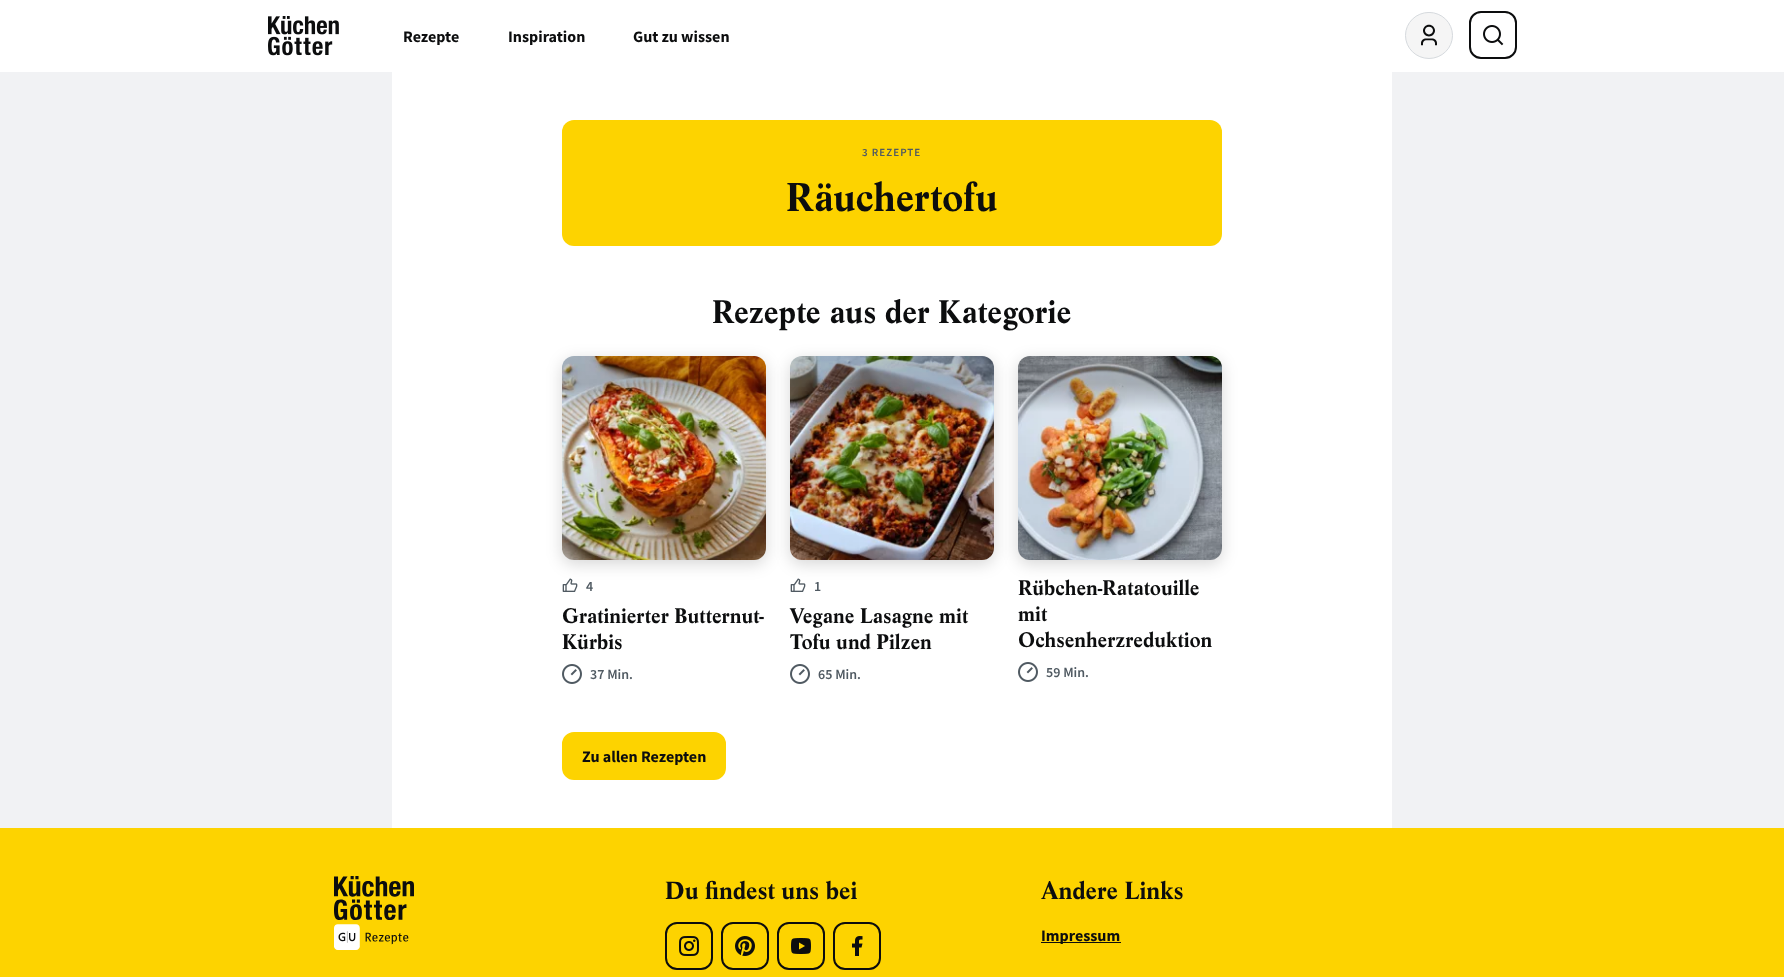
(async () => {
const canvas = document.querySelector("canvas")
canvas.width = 1784
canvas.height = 977
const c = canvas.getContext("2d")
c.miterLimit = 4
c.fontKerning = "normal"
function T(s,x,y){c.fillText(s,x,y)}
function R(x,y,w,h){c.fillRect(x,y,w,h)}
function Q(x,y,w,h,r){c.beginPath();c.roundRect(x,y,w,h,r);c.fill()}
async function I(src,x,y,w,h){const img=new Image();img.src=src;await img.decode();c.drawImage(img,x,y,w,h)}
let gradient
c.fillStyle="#f1f2f4"
R(0,0,1784,977)
c.fillStyle="#fff"
R(0,0,1784,72)
await I("1.png",268,16,71,40)
c.font="bold 16px Source Sans Pro"
c.fillStyle="#0c0d0e"
T("Rezepte",403,42)
T("Inspiration",508,42)
T("Gut zu wissen",633,42)
await I("2.png",1405,12,48,47)
c.beginPath()
c.roundRect(1470,12,46,46,11)
c.strokeStyle="#0c0d0e"
c.lineWidth=2
c.stroke()
await I("3.png",1483,25,21,21)
c.fillStyle="#fff"
R(392,72,1000,756)
c.fillStyle="#fdd300"
Q(562,120,660,126,12)
c.letterSpacing="1px"
c.font="600 11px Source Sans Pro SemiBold"
c.fillStyle="#505a62"
T("3 REZEPTE",862,156)
c.letterSpacing="0px"
c.font="bold 42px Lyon"
c.fillStyle="#0c0d0e"
T("Räuchertofu",786,211)
c.font="bold 34px Lyon"
T("Rezepte aus der Kategorie",712,323)
await I("5.png",562,578,16,14)
c.fillStyle="#00000029"
c.filter="blur(8px)"
c.beginPath()
c.roundRect(562,360,204,204,12)
c.fill()
c.filter="none"
await I("4.png",562,356,204,204)
gradient = c.createLinearGradient(664,356,664,412)
gradient.addColorStop(.5,"#0000003d")
gradient.addColorStop(1,"#00000000")
c.fillStyle = gradient
c.beginPath()
c.roundRect(562,356,204,56,[12,12,0,0])
c.fill()
c.font="600 14px Source Sans Pro SemiBold"
c.fillStyle="#505a62"
T("4",586,591)
c.font="bold 22px Lyon"
c.fillStyle="#0c0d0e"
T("Gratinierter Butternut-",562,623)
T("Kürbis",562,649)
await I("6.png",562,664,20,20)
c.font="600 14px Source Sans Pro SemiBold"
c.fillStyle="#505a62"
T("37 Min.",590,679)
await I("5.png",790,578,16,14)
c.fillStyle="#00000029"
c.filter="blur(8px)"
c.beginPath()
c.roundRect(790,360,204,204,12)
c.fill()
c.filter="none"
await I("7.png",790,356,204,204)
gradient = c.createLinearGradient(892,356,892,412)
gradient.addColorStop(.5,"#0000003d")
gradient.addColorStop(1,"#00000000")
c.fillStyle = gradient
c.beginPath()
c.roundRect(790,356,204,56,[12,12,0,0])
c.fill()
c.fillStyle="#505a62"
T("1",814,591)
c.font="bold 22px Lyon"
c.fillStyle="#0c0d0e"
T("Vegane Lasagne mit",790,623)
T("Tofu und Pilzen",790,649)
await I("6.png",790,664,20,20)
c.font="600 14px Source Sans Pro SemiBold"
c.fillStyle="#505a62"
T("65 Min.",818,679)
c.fillStyle="#00000029"
c.filter="blur(8px)"
c.beginPath()
c.roundRect(1018,360,204,204,12)
c.fill()
c.filter="none"
await I("8.png",1018,356,204,204)
gradient = c.createLinearGradient(1120,356,1120,412)
gradient.addColorStop(.5,"#0000003d")
gradient.addColorStop(1,"#00000000")
c.fillStyle = gradient
c.beginPath()
c.roundRect(1018,356,204,56,[12,12,0,0])
c.fill()
c.font="bold 22px Lyon"
c.fillStyle="#0c0d0e"
T("Rübchen-Ratatouille",1018,595)
T("mit",1018,621)
T("Ochsenherzreduktion",1018,647)
await I("6.png",1018,662,20,20)
c.font="600 14px Source Sans Pro SemiBold"
c.fillStyle="#505a62"
T("59 Min.",1046,677)
c.fillStyle="#fdd300"
c.beginPath()
c.roundRect(563,733,162,46,11)
c.fill()
c.strokeStyle="#fdd300"
c.stroke()
c.font="bold 16px Source Sans Pro"
c.fillStyle="#0c0d0e"
T("Zu allen Rezepten",582,762)
c.fillStyle="#fdd300"
R(0,828,1784,149)
await I("9.png",334,876,80,74)
c.font="bold 26px Lyon"
c.fillStyle="#0c0d0e"
T("Du findest uns bei",665,899)
c.beginPath()
c.roundRect(666,923,46,46,11)
c.strokeStyle="#0c0d0e"
c.stroke()
await I("10.png",679,936,20,20)
c.beginPath()
c.roundRect(722,923,46,46,11)
c.stroke()
await I("11.png",735,936,20,20)
c.beginPath()
c.roundRect(778,923,46,46,11)
c.stroke()
await I("12.png",791,938,20,16)
c.beginPath()
c.roundRect(834,923,46,46,11)
c.stroke()
await I("13.png",852,936,11,20)
T("Andere Links",1041,899)
R(1041,942,80,1)
c.font="bold 16px Source Sans Pro"
T("Impressum",1041,941)
})()
